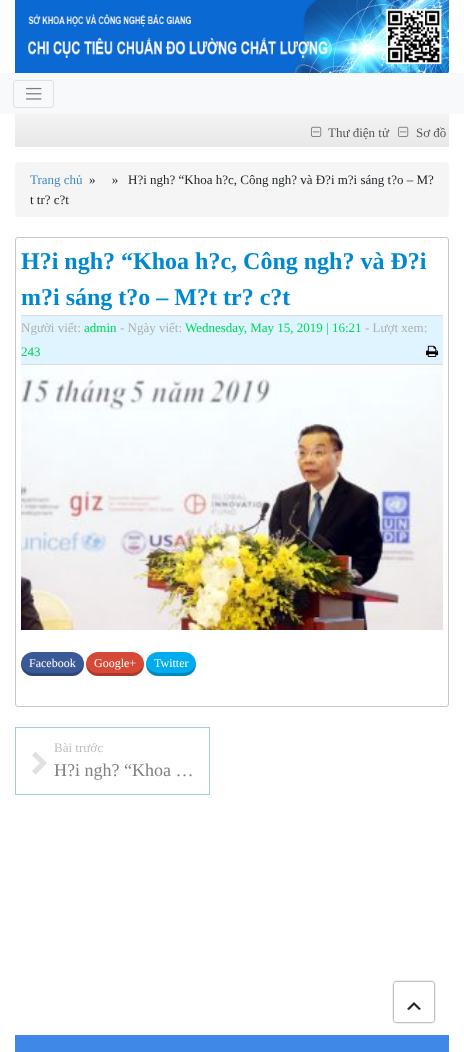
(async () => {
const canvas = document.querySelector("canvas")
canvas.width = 464
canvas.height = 1052
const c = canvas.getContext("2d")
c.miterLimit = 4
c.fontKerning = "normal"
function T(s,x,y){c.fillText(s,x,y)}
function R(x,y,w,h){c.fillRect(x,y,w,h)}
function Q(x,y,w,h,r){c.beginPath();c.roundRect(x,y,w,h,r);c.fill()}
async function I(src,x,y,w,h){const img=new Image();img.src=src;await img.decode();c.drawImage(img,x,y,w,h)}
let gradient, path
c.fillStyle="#fff"
R(0,0,464,1052)
await I("1.png",15,0,434,73)
c.fillStyle="#f8f9fa"
R(0,73,464,41)
c.beginPath()
c.roundRect(13.5,80.5,40,27,2.5)
c.strokeStyle="#dfe0e1"
c.stroke()
await I("2.png",26,87,16,13)
gradient = c.createLinearGradient(232,114,232,147)
gradient.addColorStop(0,"#f3f3f3")
gradient.addColorStop(1,"#e8e8e8")
c.fillStyle = gradient
R(15,114,434,33)
await I("3.png",311,126,11,11)
c.font="13px Liberation Serif"
c.fillStyle="#585858"
T("Thư điện tử",328,137)
await I("3.png",398,126,11,11)
T("Sơ đồ",416,137)
c.fillStyle="#f5f5f5"
Q(15,162,434,55,4)
c.fillStyle="#428bca"
T("Trang chủ",30,184)
c.fillStyle="#212529"
T("»     »   H?i ngh? “Khoa h?c, Công ngh? và Ð?i m?i sáng t?o – M?",89,184)
T("t tr? c?t",30,204)
c.beginPath()
c.roundRect(15.5,237.5,433,469,2.5)
c.strokeStyle="#c6c6c6"
c.stroke()
c.fillStyle="#dcdcdc"
R(21,315,422,1)
c.font="bold 24px Liberation Serif"
c.fillStyle="#0089d0"
T("H?i ngh? “Khoa h?c, Công ngh? và Ð?i",21,269)
T("m?i sáng t?o – M?t tr? c?t",21,305)
c.fillStyle="#dff4ff"
R(21,316,422,48)
c.fillStyle="#dcdcdc"
R(21,364,422,1)
c.font="13px Liberation Serif"
c.fillStyle="#afafaf"
T("Người viết:",21,332)
c.fillStyle="#00d95a"
T("admin",84,332)
c.fillStyle="#afafaf"
T("- Ngày viết:",120,332)
c.fillStyle="#00d95a"
T("Wednesday, May 15, 2019 | 16:21",185,332)
c.fillStyle="#afafaf"
T("- Lượt xem:",365,332)
c.fillStyle="#00d95a"
T("243",21,356)
await I("4.png",426,345,13,12)
await I("5.png",21,365,422,265)
c.fillStyle="#3b5997"
Q(21,652,63,24,12)
c.fillStyle="#00000033"
path = new Path2D("M21 663c-1 6 4 12 10 13h43c6-1 11-7 10-13c-1 6-6 10-12 10h-39c-6 0-11-4-12-10z")
c.fill(path)
c.font="12px Liberation Serif"
c.fillStyle="#fff"
T("Facebook",29,667)
c.fillStyle="#d64937"
Q(86,652,58,24,12)
c.fillStyle="#00000033"
path = new Path2D("M86 663v1c0 7 5 12 12 12h34c7 0 12-5 12-12v-1c-1 6-6 10-12 10h-34c-6 0-11-4-12-10z")
c.fill(path)
c.fillStyle="#fff"
T("Google+",94,667)
c.fillStyle="#00aced"
Q(146,652,50,24,12)
c.fillStyle="#00000033"
path = new Path2D("M146 663c0 2 0 5 2 8c5 7 15 5 23 5c8 0 18 2 23-5c2-3 2-6 2-8c-2 12-16 10-25 10c-9 0-23 2-25-10z")
c.fill(path)
c.fillStyle="#fff"
T("Twitter",154,667)
c.strokeStyle="#9fd0d5"
c.strokeRect(15.5,727.5,194,67)
c.font="13px Liberation Serif"
c.fillStyle="#bebebe"
T("Bài trước",54,752)
await I("6.png",32,752,15,23)
c.font="18px Liberation Serif"
c.fillStyle="#808080"
T("H?i ngh? “Khoa …",54,776)
c.fillStyle="#3f88e8"
R(15,1035,434,17)
c.fillStyle="#444"
c.filter="blur(1px)"
c.beginPath()
c.roundRect(394,982,40,40,2)
c.fill()
c.filter="none"
c.fillStyle="#fff"
Q(394,982,40,40,2)
await I("7.png",407,1002,14,8)
})()
